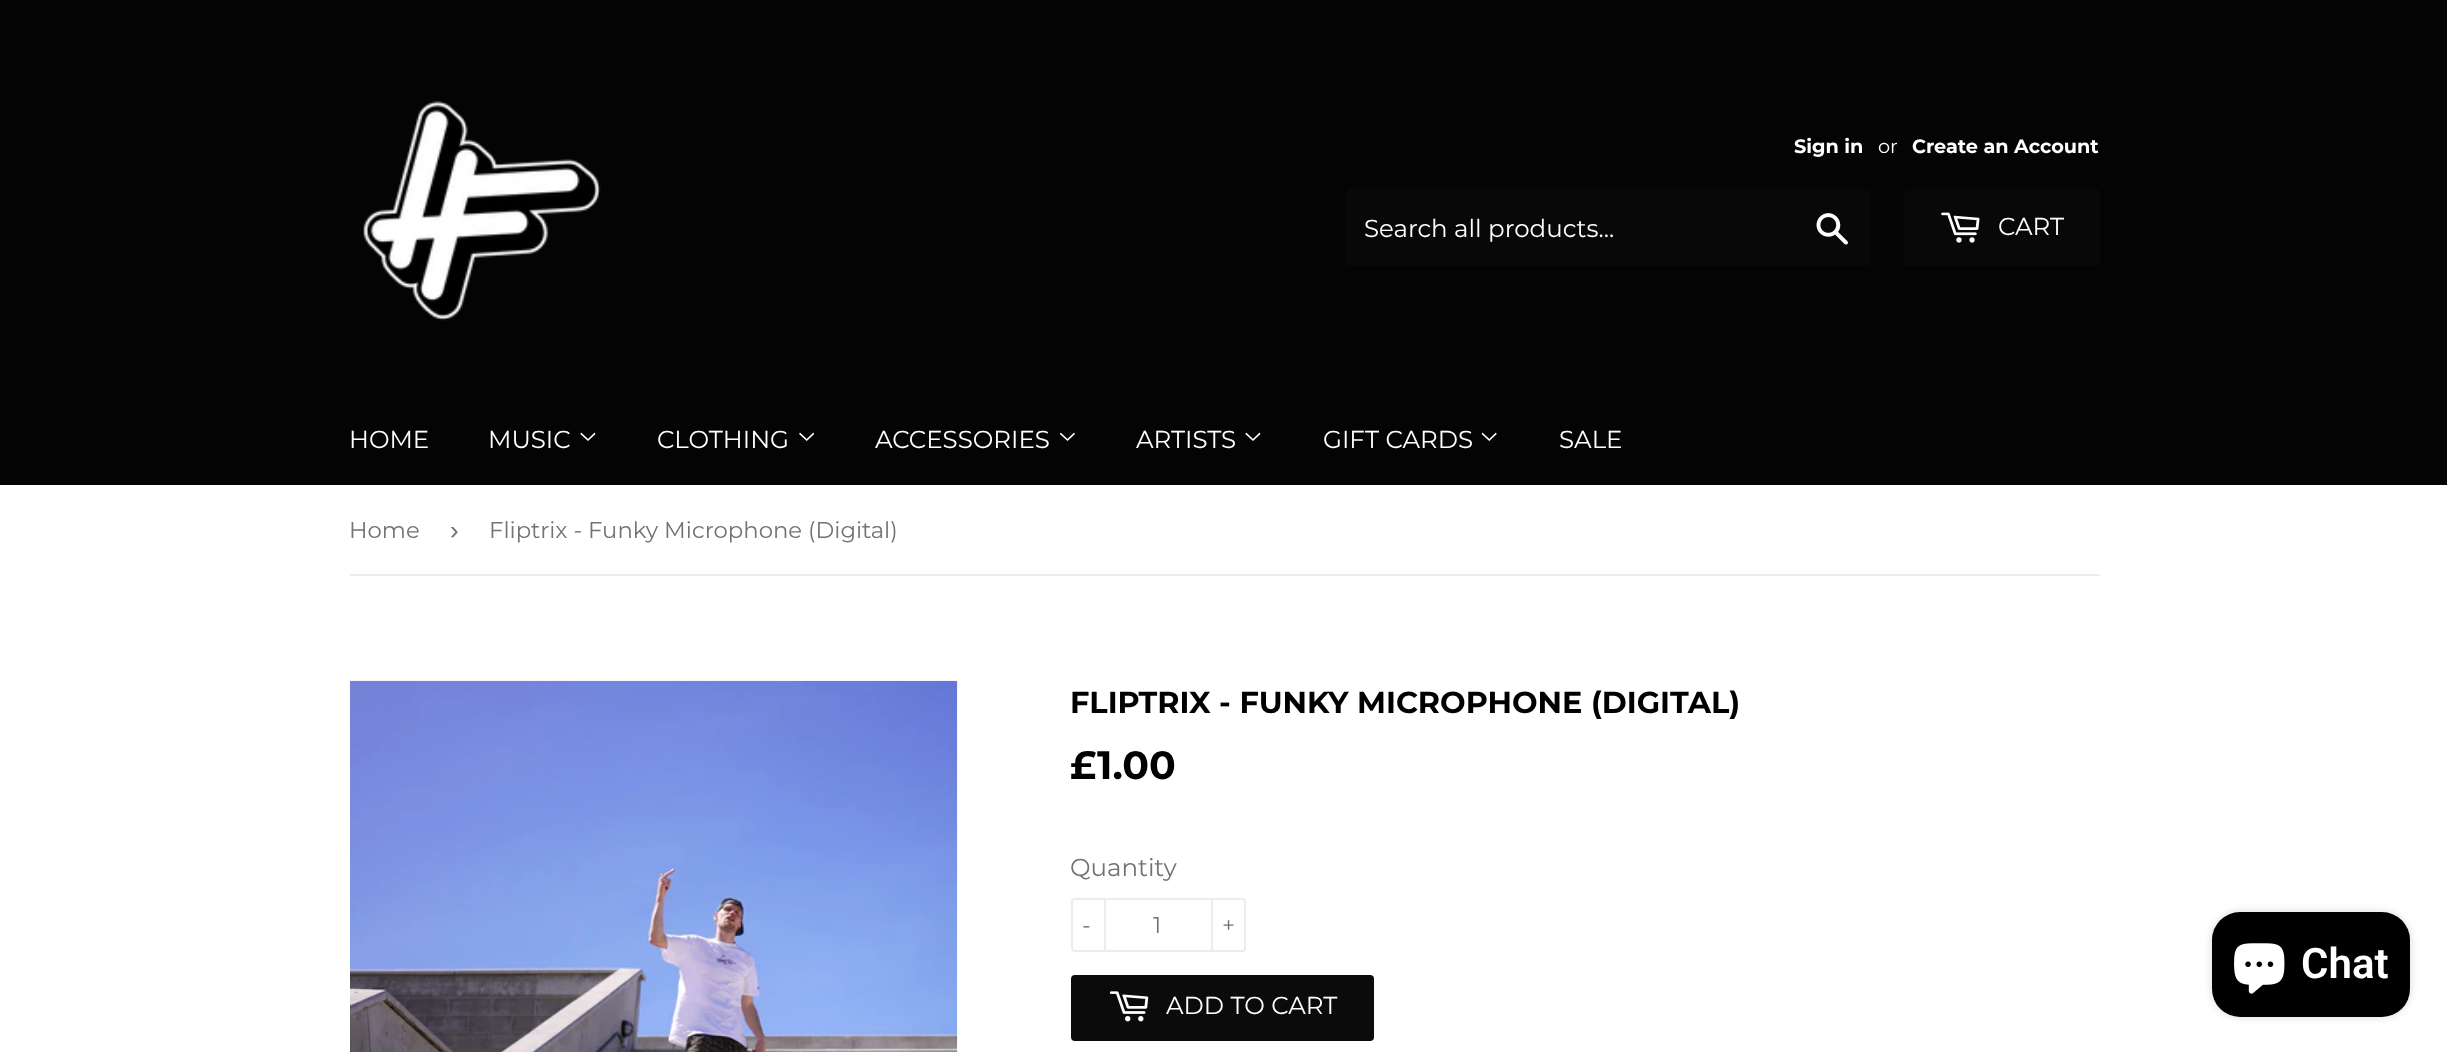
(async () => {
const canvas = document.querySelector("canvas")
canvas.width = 2447
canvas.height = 1052
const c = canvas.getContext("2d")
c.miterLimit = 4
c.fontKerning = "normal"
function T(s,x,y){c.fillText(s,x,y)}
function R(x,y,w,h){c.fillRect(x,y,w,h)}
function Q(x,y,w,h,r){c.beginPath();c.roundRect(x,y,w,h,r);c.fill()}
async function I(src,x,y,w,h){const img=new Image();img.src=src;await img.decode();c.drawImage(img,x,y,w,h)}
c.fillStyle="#fff"
R(0,0,2447,1052)
c.fillStyle="#040404"
R(0,0,2447,485)
await I("1.png",362,101,239,220)
c.font="bold 19.25px Montserrat"
c.fillStyle="#fff"
T("Sign in",1794,153)
c.font="19.25px Montserrat"
T("or",1878,153)
c.font="bold 19.25px Montserrat"
T("Create an Account",1912,153)
c.fillStyle="#080808"
Q(1346,189,525,77,4)
c.font="24.5px Montserrat"
c.fillStyle="#fff"
T("Search all products...",1364,237)
await I("2.png",1816,213,32,32)
c.fillStyle="#080808"
Q(1904,189,196,77,4)
await I("3.png",1941,212,39,31)
c.fillStyle="#fff"
T("CART",1998,235)
T("HOME",349,448)
T("MUSIC",488,448)
await I("4.png",580,432,16,9)
T("CLOTHING",657,448)
await I("5.png",799,432,15,9)
T("ACCESSORIES",875,448)
await I("6.png",1060,432,15,9)
T("ARTISTS",1136,448)
await I("4.png",1245,432,16,9)
T("GIFT CARDS",1323,448)
await I("7.png",1481,432,16,9)
T("SALE",1559,448)
c.fillStyle="#ececec"
R(350,574,1750,2)
c.font="22.75px Montserrat"
c.fillStyle="#747272"
T("Home",349,538)
c.font="26px Liberation Sans"
T("›",450,539)
c.font="22.75px Montserrat"
T("Fliptrix - Funky Microphone (Digital)",489,538)
await I("8.png",350,680,608,372)
c.font="bold 30.3px Montserrat"
c.fillStyle="#000"
T("FLIPTRIX - FUNKY MICROPHONE (DIGITAL)",1070,713)
c.font="bold 39.5px Montserrat"
T("£1.00",1070,779)
c.font="24.5px Montserrat"
c.fillStyle="#747272"
T("Quantity",1070,876)
c.beginPath()
c.roundRect(1072,899,173,52,3)
c.strokeStyle="#ececec"
c.lineWidth=2
c.stroke()
c.fillStyle="#ececec"
R(1104,898,2,54)
c.font="22.75px Montserrat"
c.fillStyle="#747272"
T("-",1082,933)
T("1",1153,933)
c.fillStyle="#ececec"
R(1211,898,2,54)
c.fillStyle="#747272"
T("+",1222,933)
c.fillStyle="#0b0b0b"
Q(1071,975,303,66,4)
await I("9.png",1109,991,40,31)
c.font="24.5px Montserrat"
c.fillStyle="#fff"
T("ADD TO CART",1166,1014)
c.fillStyle="#00000026"
c.filter="blur(4.5px)"
c.beginPath()
c.roundRect(2212,912,198,105,28)
c.fill()
c.filter="none"
c.fillStyle="#000"
Q(2212,912,198,105,28)
await I("10.png",2234,943,51,51)
c.font="600 42px Roboto"
c.fillStyle="#fff"
T("Chat",2301,978)
})()
